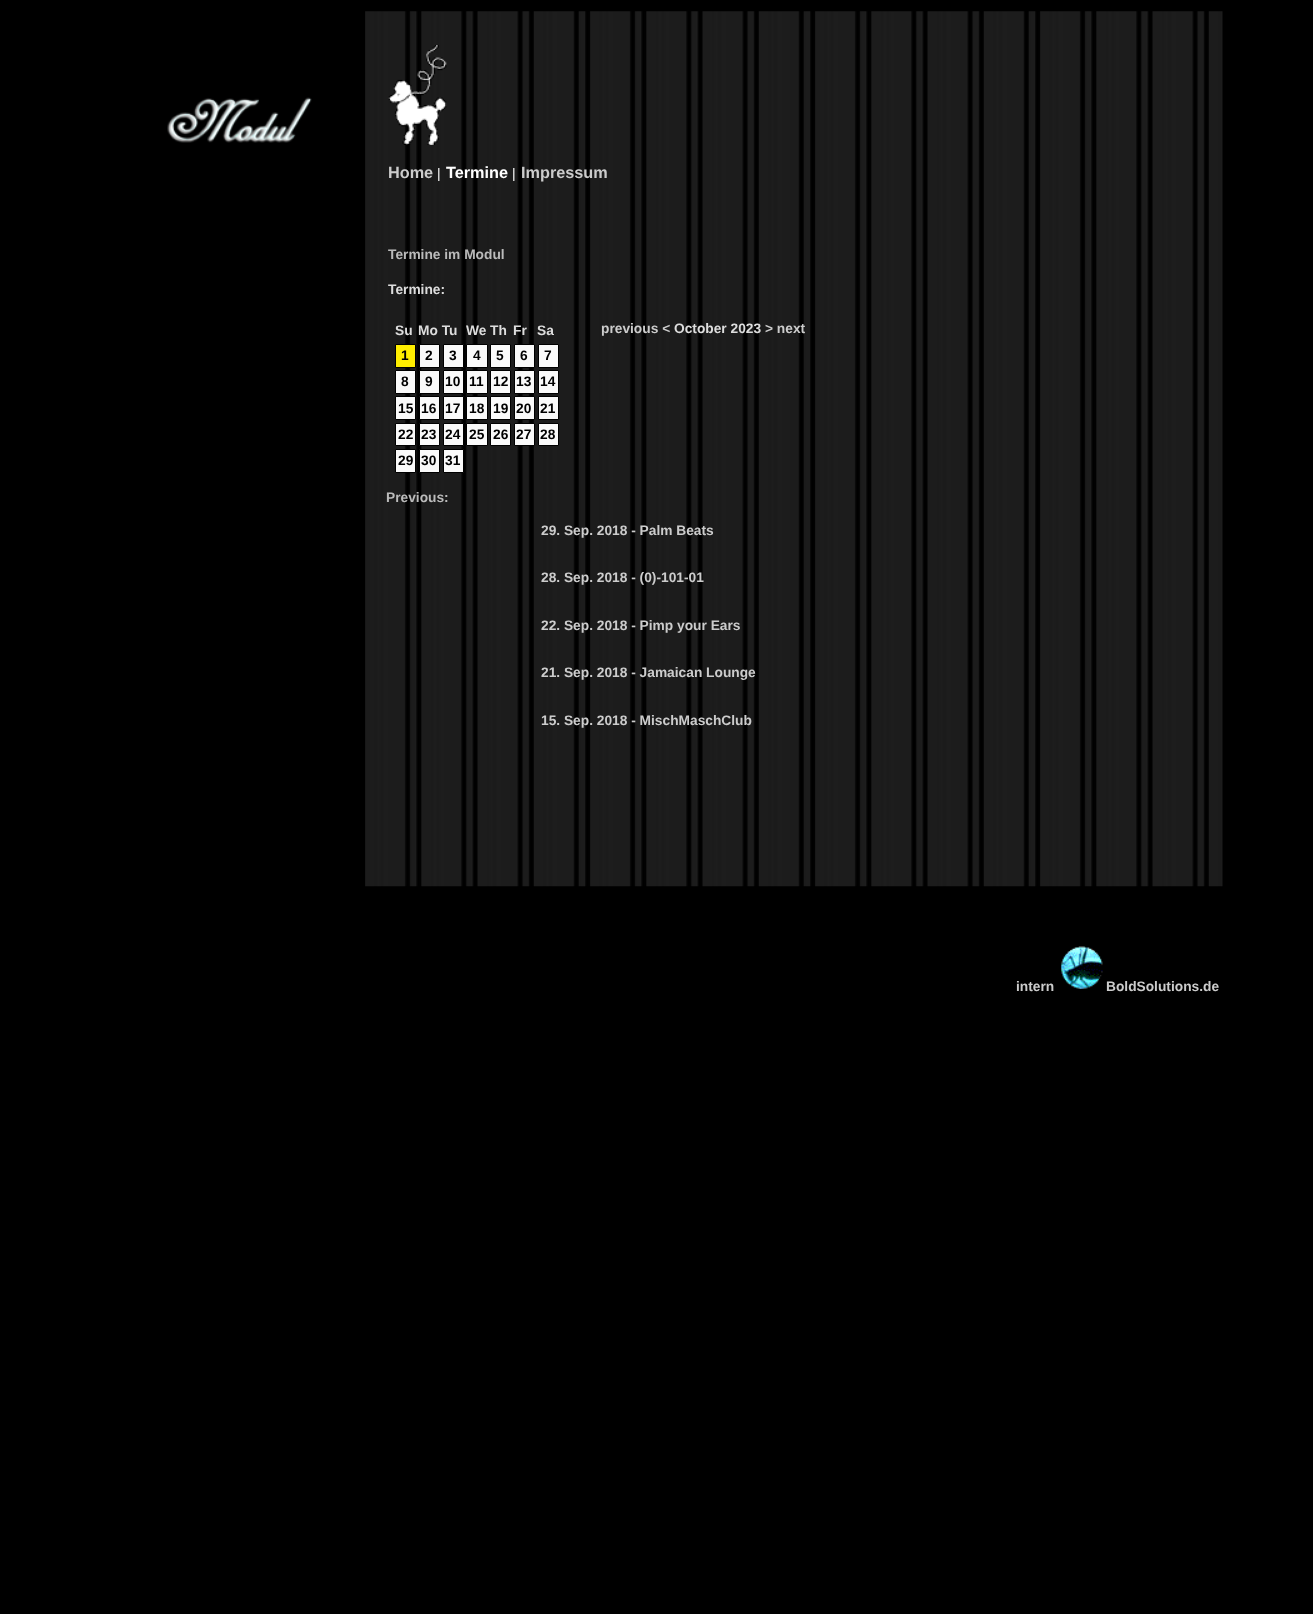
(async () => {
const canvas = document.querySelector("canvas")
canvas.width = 1313
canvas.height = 1614
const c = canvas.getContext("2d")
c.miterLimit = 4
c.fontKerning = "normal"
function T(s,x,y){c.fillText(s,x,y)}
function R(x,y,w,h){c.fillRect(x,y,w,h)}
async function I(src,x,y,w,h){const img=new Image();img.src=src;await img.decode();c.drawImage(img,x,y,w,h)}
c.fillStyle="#000"
R(0,0,1313,1614)
await I("1.png",167,97,145,46)
await I("2.png",365,11,858,876)
await I("3.png",388,45,59,100)
c.font="bold 16.25px Liberation Sans"
c.fillStyle="#ccc"
T("Home",388,178)
c.font="13.75px Liberation Sans"
c.fillStyle="#fff"
T("|",437,178)
c.font="bold 16.25px Liberation Sans"
T("Termine",446,178)
c.font="13.75px Liberation Sans"
T("|",512,178)
c.font="bold 16.25px Liberation Sans"
c.fillStyle="#ccc"
T("Impressum",521,178)
c.font="bold 13.75px Liberation Sans"
c.fillStyle="#bbb"
T("Termine im Modul",388,259)
c.fillStyle="#ddd"
T("Termine:",388,294)
T("Su",395,335)
T("Mo Tu",418,335)
T("We",466,335)
T("Th",490,335)
T("Fr",513,335)
T("Sa",537,335)
c.fillStyle="#fe0"
c.beginPath()
c.rect(395.5,344.5,20,23)
c.fill()
c.strokeStyle="#000"
c.stroke()
c.fillStyle="#000"
T("1",401,360)
c.fillStyle="#fafafa"
c.beginPath()
c.rect(419.5,344.5,20,23)
c.fill()
c.stroke()
c.fillStyle="#000"
T("2",425,360)
c.fillStyle="#fafafa"
c.beginPath()
c.rect(443.5,344.5,20,23)
c.fill()
c.stroke()
c.fillStyle="#000"
T("3",449,360)
c.fillStyle="#fafafa"
c.beginPath()
c.rect(466.5,344.5,21,23)
c.fill()
c.stroke()
c.fillStyle="#000"
T("4",473,360)
c.fillStyle="#fafafa"
c.beginPath()
c.rect(490.5,344.5,20,23)
c.fill()
c.stroke()
c.fillStyle="#000"
T("5",496,360)
c.fillStyle="#fafafa"
c.beginPath()
c.rect(514.5,344.5,20,23)
c.fill()
c.stroke()
c.fillStyle="#000"
T("6",520,360)
c.fillStyle="#fafafa"
c.beginPath()
c.rect(538.5,344.5,20,23)
c.fill()
c.stroke()
c.fillStyle="#000"
T("7",544,360)
c.fillStyle="#fafafa"
c.beginPath()
c.rect(395.5,370.5,20,23)
c.fill()
c.stroke()
c.fillStyle="#000"
T("8",401,386)
c.fillStyle="#fafafa"
c.beginPath()
c.rect(419.5,370.5,20,23)
c.fill()
c.stroke()
c.fillStyle="#000"
T("9",425,386)
c.fillStyle="#fafafa"
c.beginPath()
c.rect(443.5,370.5,20,23)
c.fill()
c.stroke()
c.fillStyle="#000"
T("10",445,386)
c.fillStyle="#fafafa"
c.beginPath()
c.rect(466.5,370.5,21,23)
c.fill()
c.stroke()
c.fillStyle="#000"
T("11",469,386)
c.fillStyle="#fafafa"
c.beginPath()
c.rect(490.5,370.5,20,23)
c.fill()
c.stroke()
c.fillStyle="#000"
T("12",493,386)
c.fillStyle="#fafafa"
c.beginPath()
c.rect(514.5,370.5,20,23)
c.fill()
c.stroke()
c.fillStyle="#000"
T("13",516,386)
c.fillStyle="#fafafa"
c.beginPath()
c.rect(538.5,370.5,20,23)
c.fill()
c.stroke()
c.fillStyle="#000"
T("14",540,386)
c.fillStyle="#fafafa"
c.beginPath()
c.rect(395.5,396.5,20,23)
c.fill()
c.stroke()
c.fillStyle="#000"
T("15",398,413)
c.fillStyle="#fafafa"
c.beginPath()
c.rect(419.5,396.5,20,23)
c.fill()
c.stroke()
c.fillStyle="#000"
T("16",421,413)
c.fillStyle="#fafafa"
c.beginPath()
c.rect(443.5,396.5,20,23)
c.fill()
c.stroke()
c.fillStyle="#000"
T("17",445,413)
c.fillStyle="#fafafa"
c.beginPath()
c.rect(466.5,396.5,21,23)
c.fill()
c.stroke()
c.fillStyle="#000"
T("18",469,413)
c.fillStyle="#fafafa"
c.beginPath()
c.rect(490.5,396.5,20,23)
c.fill()
c.stroke()
c.fillStyle="#000"
T("19",493,413)
c.fillStyle="#fafafa"
c.beginPath()
c.rect(514.5,396.5,20,23)
c.fill()
c.stroke()
c.fillStyle="#000"
T("20",516,413)
c.fillStyle="#fafafa"
c.beginPath()
c.rect(538.5,396.5,20,23)
c.fill()
c.stroke()
c.fillStyle="#000"
T("21",540,413)
c.fillStyle="#fafafa"
c.beginPath()
c.rect(395.5,423.5,20,22)
c.fill()
c.stroke()
c.fillStyle="#000"
T("22",398,439)
c.fillStyle="#fafafa"
c.beginPath()
c.rect(419.5,423.5,20,22)
c.fill()
c.stroke()
c.fillStyle="#000"
T("23",421,439)
c.fillStyle="#fafafa"
c.beginPath()
c.rect(443.5,423.5,20,22)
c.fill()
c.stroke()
c.fillStyle="#000"
T("24",445,439)
c.fillStyle="#fafafa"
c.beginPath()
c.rect(466.5,423.5,21,22)
c.fill()
c.stroke()
c.fillStyle="#000"
T("25",469,439)
c.fillStyle="#fafafa"
c.beginPath()
c.rect(490.5,423.5,20,22)
c.fill()
c.stroke()
c.fillStyle="#000"
T("26",493,439)
c.fillStyle="#fafafa"
c.beginPath()
c.rect(514.5,423.5,20,22)
c.fill()
c.stroke()
c.fillStyle="#000"
T("27",516,439)
c.fillStyle="#fafafa"
c.beginPath()
c.rect(538.5,423.5,20,22)
c.fill()
c.stroke()
c.fillStyle="#000"
T("28",540,439)
c.fillStyle="#fafafa"
c.beginPath()
c.rect(395.5,449.5,20,23)
c.fill()
c.stroke()
c.fillStyle="#000"
T("29",398,465)
c.fillStyle="#fafafa"
c.beginPath()
c.rect(419.5,449.5,20,23)
c.fill()
c.stroke()
c.fillStyle="#000"
T("30",421,465)
c.fillStyle="#fafafa"
c.beginPath()
c.rect(443.5,449.5,20,23)
c.fill()
c.stroke()
c.fillStyle="#000"
T("31",445,465)
c.fillStyle="#ccc"
T("previous <",601,333)
c.fillStyle="#ddd"
T("October 2023",674,333)
c.fillStyle="#ccc"
T("> next",765,333)
c.fillStyle="#bbb"
T("Previous:",386,502)
c.fillStyle="#ccc"
T("29. Sep. 2018 - Palm Beats",541,535)
T("28. Sep. 2018 - (0)-101-01",541,582)
T("22. Sep. 2018 - Pimp your Ears",541,630)
T("21. Sep. 2018 - Jamaican Lounge",541,677)
T("15. Sep. 2018 - MischMaschClub",541,725)
T("intern",1016,991)
await I("4.png",1061,946,42,43)
T("BoldSolutions.de",1106,991)
})()
